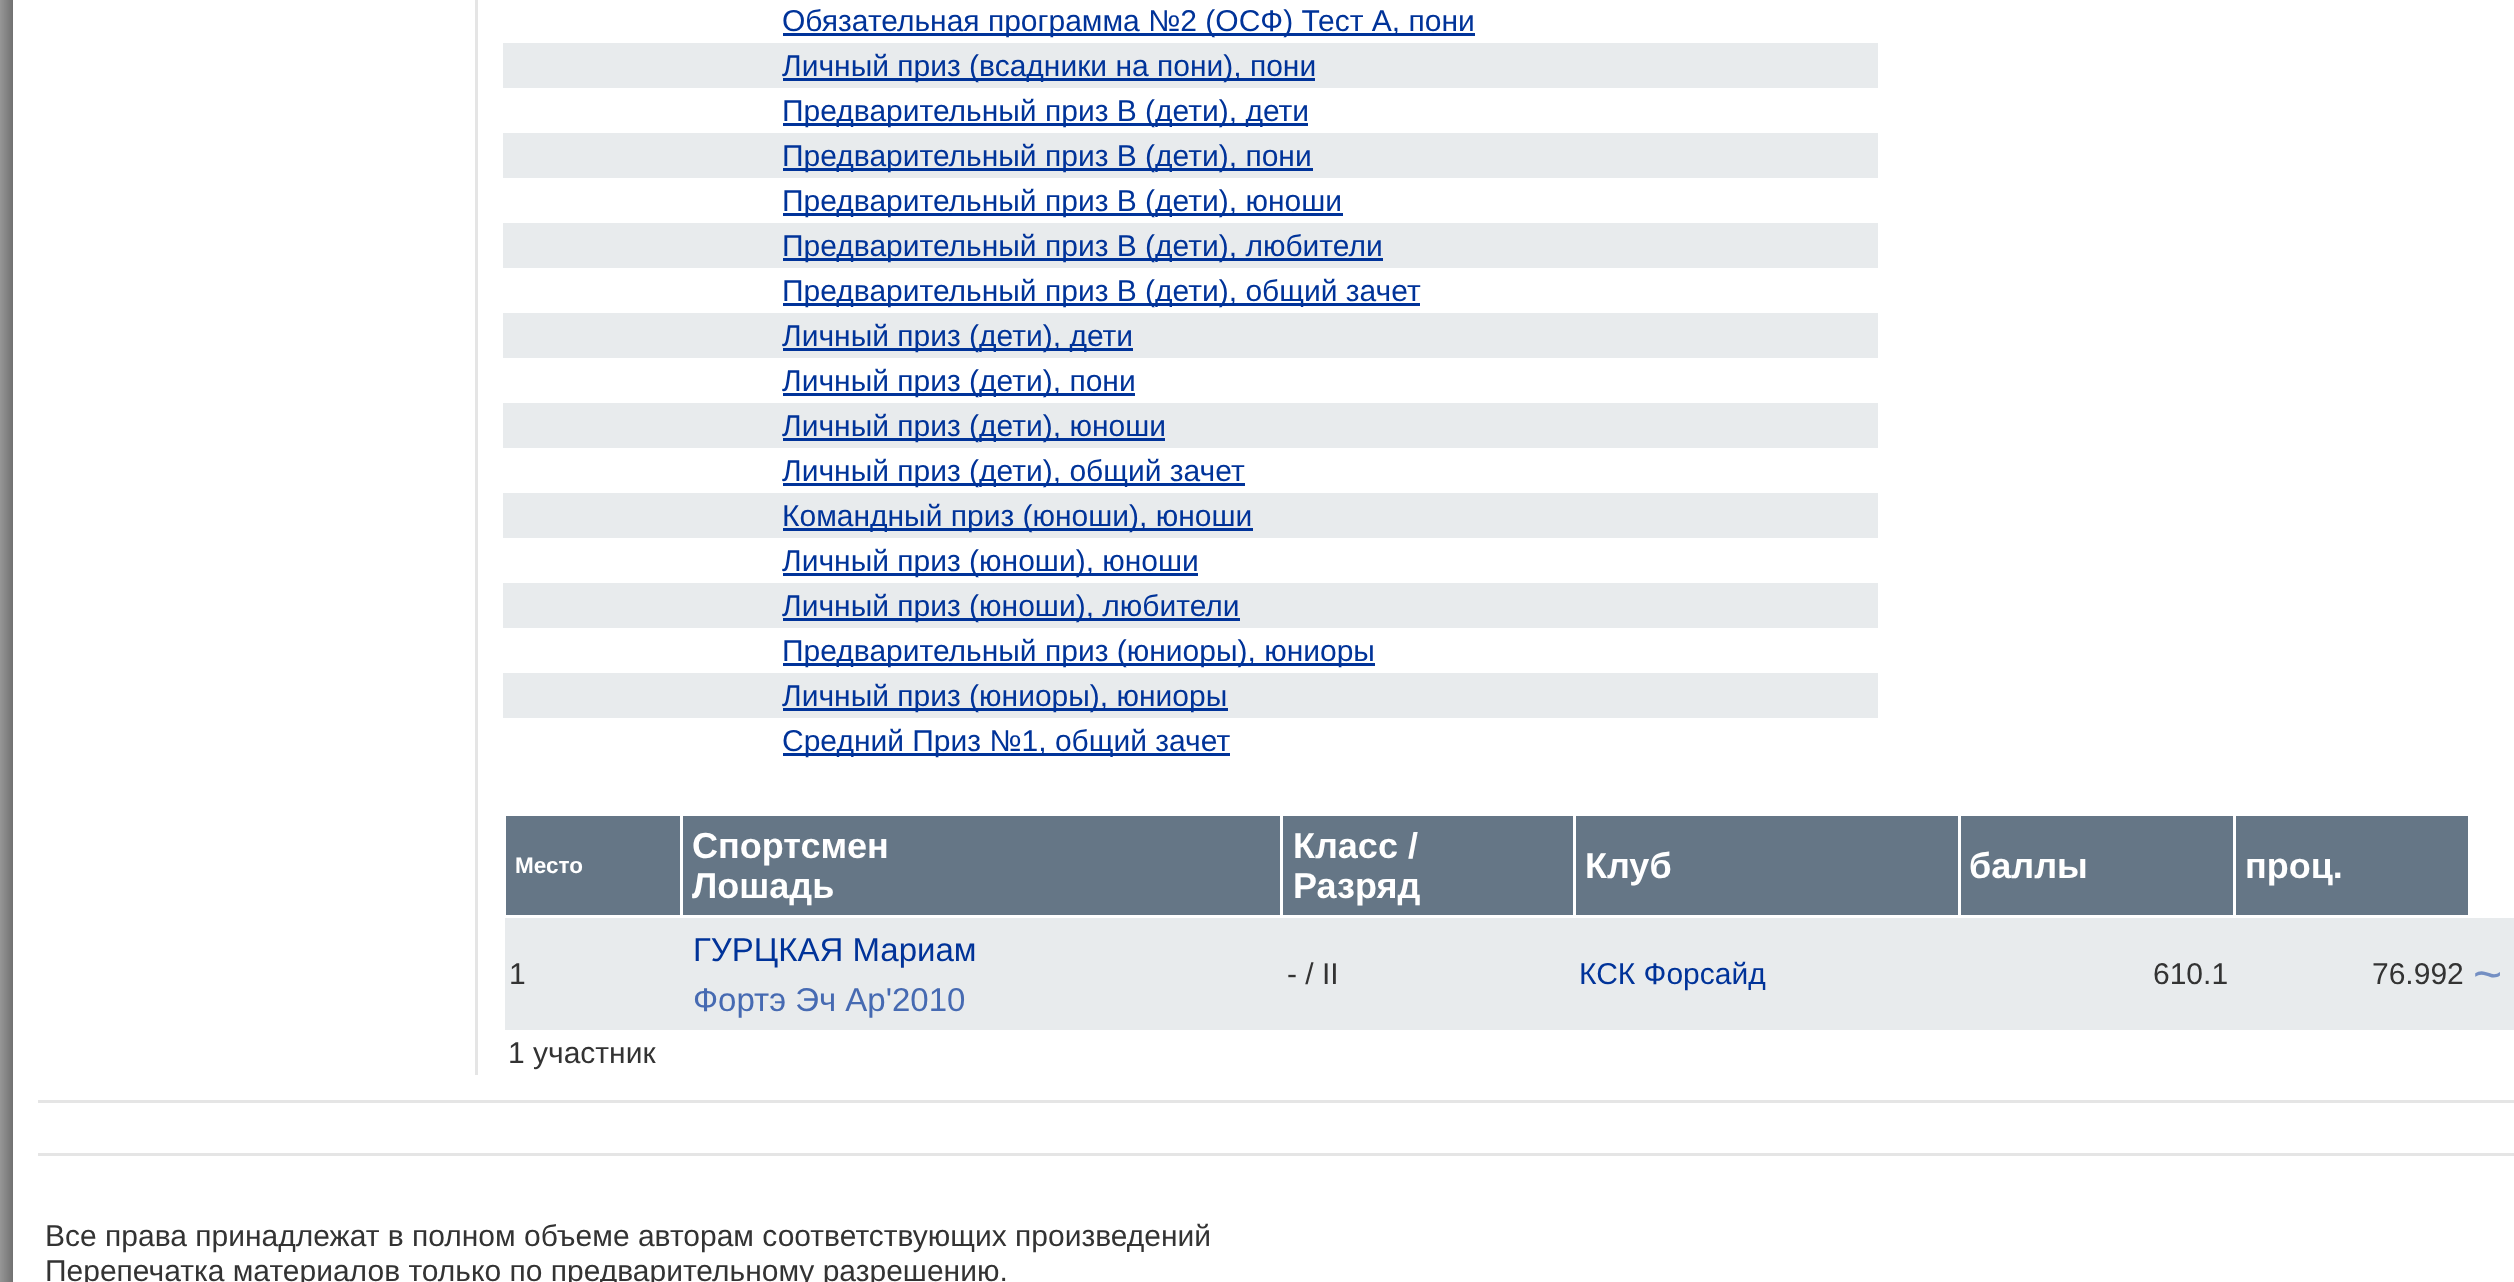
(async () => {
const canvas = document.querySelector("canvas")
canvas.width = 2514
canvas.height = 1282
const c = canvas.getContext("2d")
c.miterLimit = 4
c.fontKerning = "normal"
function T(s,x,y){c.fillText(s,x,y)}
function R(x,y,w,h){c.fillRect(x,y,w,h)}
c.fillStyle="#c0c0c0"
R(0,0,2514,1282)
c.fillStyle="#212121"
c.filter="blur(21px)"
c.beginPath()
c.rect(13,-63,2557,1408)
c.fill()
c.filter="none"
c.fillStyle="#fff"
R(13,0,2501,1282)
c.fillStyle="#e5e5e5"
R(475,0,3,1075)
c.fillStyle="#039"
R(783,33,692,3)
c.font="30px Liberation Sans"
T("Обязательная программа №2 (ОСФ) Тест А, пони",782,31)
c.fillStyle="#e8ebed"
R(503,43,1375,45)
c.fillStyle="#039"
R(783,78,532,3)
T("Личный приз (всадники на пони), пони",782,76)
R(783,123,525,3)
T("Предварительный приз В (дети), дети",782,121)
c.fillStyle="#e8ebed"
R(503,133,1375,45)
c.fillStyle="#039"
R(783,168,530,3)
T("Предварительный приз В (дети), пони",782,166)
R(783,213,560,3)
T("Предварительный приз В (дети), юноши",782,211)
c.fillStyle="#e8ebed"
R(503,223,1375,45)
c.fillStyle="#039"
R(783,258,600,3)
T("Предварительный приз В (дети), любители",782,256)
R(783,303,637,3)
T("Предварительный приз В (дети), общий зачет",782,301)
c.fillStyle="#e8ebed"
R(503,313,1375,45)
c.fillStyle="#039"
R(783,348,350,3)
T("Личный приз (дети), дети",782,346)
R(783,393,352,3)
T("Личный приз (дети), пони",782,391)
c.fillStyle="#e8ebed"
R(503,403,1375,45)
c.fillStyle="#039"
R(783,438,382,3)
T("Личный приз (дети), юноши",782,436)
R(783,483,462,3)
T("Личный приз (дети), общий зачет",782,481)
c.fillStyle="#e8ebed"
R(503,493,1375,45)
c.fillStyle="#039"
R(783,528,470,3)
T("Командный приз (юноши), юноши",782,526)
R(783,573,415,3)
T("Личный приз (юноши), юноши",782,571)
c.fillStyle="#e8ebed"
R(503,583,1375,45)
c.fillStyle="#039"
R(783,618,457,3)
T("Личный приз (юноши), любители",782,616)
R(783,663,592,3)
T("Предварительный приз (юниоры), юниоры",782,661)
c.fillStyle="#e8ebed"
R(503,673,1375,45)
c.fillStyle="#039"
R(783,708,445,3)
T("Личный приз (юниоры), юниоры",782,706)
R(783,753,447,3)
T("Средний Приз №1, общий зачет",782,751)
c.fillStyle="#657686"
R(506,816,174,99)
c.font="bold 22.5px Liberation Sans"
c.fillStyle="#fff"
T("Место",515,873)
c.fillStyle="#657686"
R(683,816,597,99)
c.font="bold 36px Liberation Sans"
c.fillStyle="#fff"
T("Спортсмен",692,858)
T("Лошадь",692,898)
c.fillStyle="#657686"
R(1283,816,290,99)
c.fillStyle="#fff"
T("Класс /",1293,858)
T("Разряд",1293,898)
c.fillStyle="#657686"
R(1576,816,382,99)
c.fillStyle="#fff"
T("Клуб",1585,878)
c.fillStyle="#657686"
R(1961,816,272,99)
c.fillStyle="#fff"
T("баллы",1969,878)
c.fillStyle="#657686"
R(2236,816,232,99)
c.fillStyle="#fff"
T("проц.",2245,878)
c.fillStyle="#e8ebed"
R(505,918,2009,112)
c.font="30px Liberation Sans"
c.fillStyle="#333"
T("1",509,984)
c.font="33px Liberation Sans"
c.fillStyle="#039"
T("ГУРЦКАЯ Мариам",693,961)
c.fillStyle="#466ab2"
T("Фортэ Эч Ар'2010",693,1011)
c.font="30px Liberation Sans"
c.fillStyle="#333"
T("- / II",1287,984)
c.fillStyle="#039"
T("КСК Форсайд",1579,984)
c.fillStyle="#333"
T("610.1",2153,984)
T("76.992",2372,984)
c.font="50px Liberation Sans"
c.fillStyle="#748fc3"
T("~",2473,991)
c.font="30px Liberation Sans"
c.fillStyle="#333"
T("1 участник",508,1063)
c.fillStyle="#e5e5e5"
R(38,1100,2476,3)
R(38,1153,2476,3)
c.fillStyle="#333"
T("Все права принадлежат в полном объеме авторам соответствующих произведений",45,1246)
T("Перепечатка материалов только по предварительному разрешению.",45,1281)
})()
